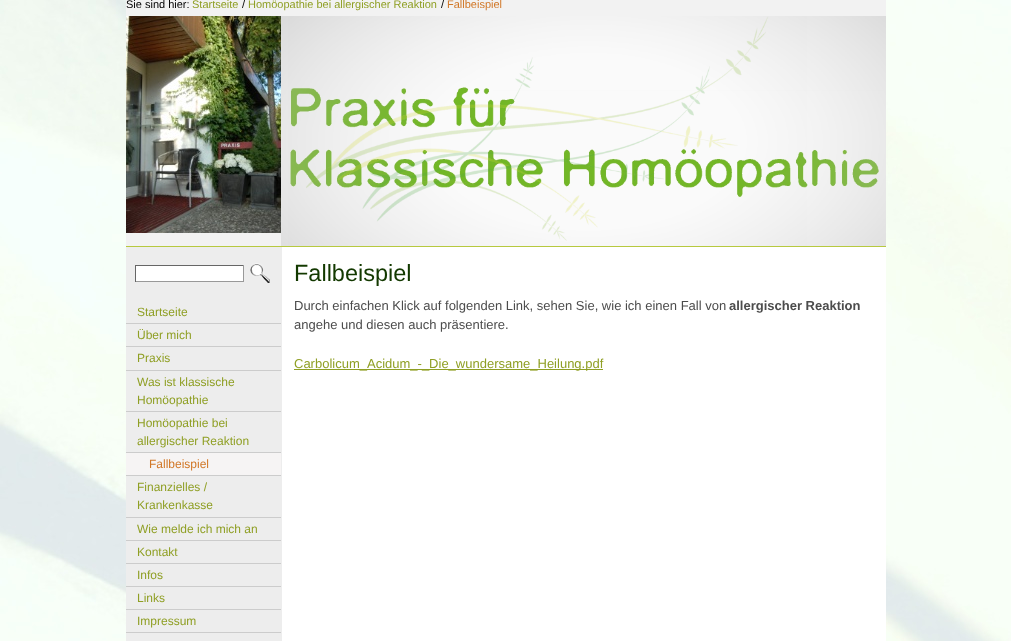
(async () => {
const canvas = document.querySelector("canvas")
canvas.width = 1011
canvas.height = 641
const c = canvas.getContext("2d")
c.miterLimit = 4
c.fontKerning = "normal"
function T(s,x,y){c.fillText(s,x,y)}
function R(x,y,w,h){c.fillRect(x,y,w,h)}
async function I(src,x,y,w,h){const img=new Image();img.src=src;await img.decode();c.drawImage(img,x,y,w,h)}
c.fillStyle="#fff"
R(0,0,1011,641)
await I("1.png",0,0,1011,641)
R(282,247,604,394)
c.fillStyle="#ededed"
R(126,247,156,394)
c.fillStyle="#f2f2f2"
R(126,0,760,16)
c.font="11px Liberation Sans"
c.fillStyle="#000"
T("Sie sind hier:",126,8)
c.fillStyle="#8f9f24"
T("Startseite",192,8)
c.fillStyle="#000"
T("/",242,8)
c.fillStyle="#8f9f24"
T("Homöopathie bei allergischer Reaktion",248,8)
c.fillStyle="#000"
T("/",441,8)
c.fillStyle="#d17727"
T("Fallbeispiel",447,8)
c.fillStyle="#f2f2f2"
R(126,233,155,13)
c.fillStyle="#b7c93f"
R(126,246,760,1)
await I("2.png",126,16,155,217)
await I("3.png",281,16,605,230)
c.fillStyle="#fff"
R(136,266,107,15)
c.fillStyle="#666"
R(135,265,109,1)
c.fillStyle="#999"
R(243,265,1,17)
R(135,281,109,1)
c.fillStyle="#666"
R(135,265,1,17)
await I("4.png",250,263,20,20)
c.fillStyle="#ccc"
R(126,323,155,1)
c.font="12px Liberation Sans"
c.fillStyle="#8f9f24"
T("Startseite",137,316)
c.fillStyle="#ccc"
R(126,346,155,1)
c.fillStyle="#8f9f24"
T("Über mich",137,339)
c.fillStyle="#ccc"
R(126,370,155,1)
c.fillStyle="#8f9f24"
T("Praxis",137,362)
c.fillStyle="#ccc"
R(126,411,155,1)
c.fillStyle="#8f9f24"
T("Was ist klassische",137,386)
T("Homöopathie",137,404)
c.fillStyle="#ccc"
R(126,452,155,1)
c.fillStyle="#8f9f24"
T("Homöopathie bei",137,427)
T("allergischer Reaktion",137,445)
c.fillStyle="#f6f4f4"
R(126,453,155,22)
c.fillStyle="#ccc"
R(126,475,155,1)
c.fillStyle="#d17727"
T("Fallbeispiel",149,468)
c.fillStyle="#ccc"
R(126,517,155,1)
c.fillStyle="#8f9f24"
T("Finanzielles /",137,491)
T("Krankenkasse",137,509)
c.fillStyle="#ccc"
R(126,540,155,1)
c.fillStyle="#8f9f24"
T("Wie melde ich mich an",137,533)
c.fillStyle="#ccc"
R(126,563,155,1)
c.fillStyle="#8f9f24"
T("Kontakt",137,556)
c.fillStyle="#ccc"
R(126,586,155,1)
c.fillStyle="#8f9f24"
T("Infos",137,579)
c.fillStyle="#ccc"
R(126,609,155,1)
c.fillStyle="#8f9f24"
T("Links",137,602)
c.fillStyle="#ccc"
R(126,632,155,1)
c.fillStyle="#8f9f24"
T("Impressum",137,625)
c.font="23.5px Liberation Sans"
c.fillStyle="#133900"
T("Fallbeispiel",294,281)
c.font="13px Liberation Sans"
c.fillStyle="#4c4c4c"
T("Durch einfachen Klick auf folgenden Link, sehen Sie, wie ich einen Fall von",294,310)
c.font="bold 13px Liberation Sans"
T("allergischer Reaktion",729,310)
c.font="13px Liberation Sans"
T("angehe und diesen auch präsentiere.",294,329)
c.fillStyle="#8f9f24"
R(294,369,309,1)
T("Carbolicum_Acidum_-_Die_wundersame_Heilung.pdf",294,368)
})()
